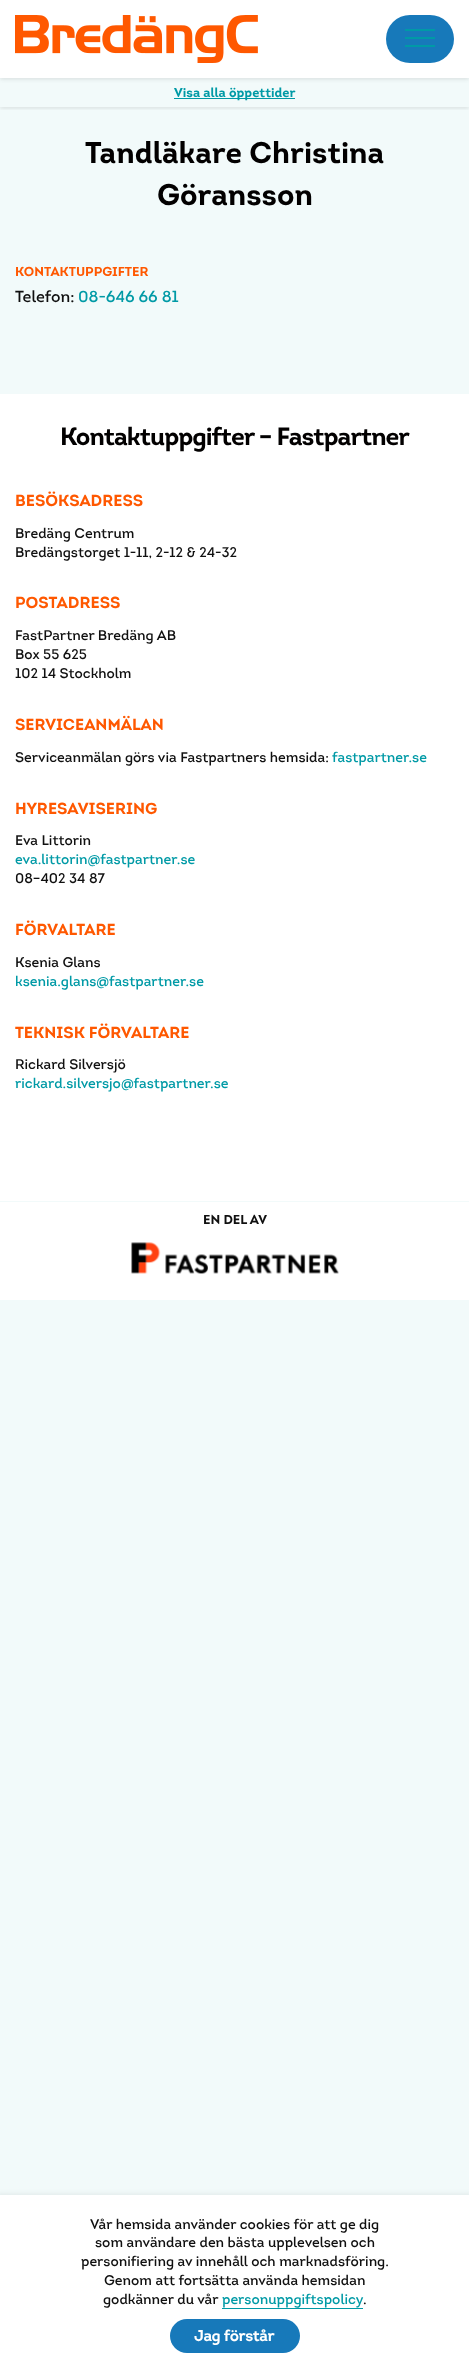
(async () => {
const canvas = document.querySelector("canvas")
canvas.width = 469
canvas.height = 2373
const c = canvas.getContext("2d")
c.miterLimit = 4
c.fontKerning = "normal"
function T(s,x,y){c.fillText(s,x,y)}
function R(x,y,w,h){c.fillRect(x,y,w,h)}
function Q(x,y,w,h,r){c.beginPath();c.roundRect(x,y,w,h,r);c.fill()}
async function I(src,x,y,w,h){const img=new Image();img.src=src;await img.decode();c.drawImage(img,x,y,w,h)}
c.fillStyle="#f2fafa"
R(0,0,469,2373)
c.fillStyle="#33333326"
c.filter="blur(2px)"
c.beginPath()
c.rect(0,1,469,78)
c.fill()
c.filter="none"
c.save()
c.beginPath()
c.rect(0,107,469,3)
c.clip()
c.filter="blur(2px)"
c.beginPath()
c.rect(0,79,469,29)
c.fill()
c.filter="none"
c.restore()
c.fillStyle="#fff"
R(0,0,469,78)
await I("1.png",15,15,243,48)
c.fillStyle="#1779ba"
Q(386,15,68,48,24)
c.fillStyle="#009aa6"
R(405,29,30,2)
R(405,37,30,2)
R(405,45,30,2)
R(174,98,121,1)
c.font="bold 13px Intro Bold"
T("Visa alla öppettider",174,97)
c.font="bold 30px Intro Bold"
c.fillStyle="#020000"
T("Tandläkare Christina",85,163)
T("Göransson",157,205)
c.font="bold 13px Intro Bold"
c.fillStyle="#ff5800"
T("KONTAKTUPPGIFTER",15,276)
c.font="16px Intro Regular"
c.fillStyle="#101010"
T("Telefon:",15,302)
c.fillStyle="#009aa6"
T("08-646 66 81",78,302)
c.fillStyle="#fff"
R(0,394,469,906)
c.letterSpacing="-1px"
c.font="bold 25px Intro Bold"
c.fillStyle="#020000"
T("Kontaktuppgifter – Fastpartner",60,445)
c.letterSpacing="0px"
c.font="bold 16px Intro Bold"
c.fillStyle="#ff5800"
T("BESÖKSADRESS",15,506)
c.font="14px Intro Regular"
c.fillStyle="#101010"
T("Bredäng Centrum",15,538)
T("Bredängstorget 1-11, 2-12 & 24-32",15,557)
c.font="bold 16px Intro Bold"
c.fillStyle="#ff5800"
T("POSTADRESS",15,608)
c.font="14px Intro Regular"
c.fillStyle="#101010"
T("FastPartner Bredäng AB",15,640)
T("Box 55 625",15,659)
T("102 14 Stockholm",15,678)
c.font="bold 16px Intro Bold"
c.fillStyle="#ff5800"
T("SERVICEANMÄLAN",15,730)
c.font="14px Intro Regular"
c.fillStyle="#101010"
T("Serviceanmälan görs via Fastpartners hemsida:",15,762)
c.fillStyle="#009aa6"
T("fastpartner.se",332,762)
c.font="bold 16px Intro Bold"
c.fillStyle="#ff5800"
T("HYRESAVISERING",15,814)
c.font="14px Intro Regular"
c.fillStyle="#101010"
T("Eva Littorin",15,845)
c.fillStyle="#009aa6"
T("eva.littorin@fastpartner.se",15,864)
c.fillStyle="#101010"
T("08–402 34 87",15,883)
c.font="bold 16px Intro Bold"
c.fillStyle="#ff5800"
T("FÖRVALTARE",15,935)
c.font="14px Intro Regular"
c.fillStyle="#101010"
T("Ksenia Glans",15,967)
c.fillStyle="#009aa6"
T("ksenia.glans@fastpartner.se",15,986)
c.font="bold 16px Intro Bold"
c.fillStyle="#ff5800"
T("TEKNISK FÖRVALTARE",15,1038)
c.font="14px Intro Regular"
c.fillStyle="#101010"
T("Rickard Silversjö",15,1069)
c.fillStyle="#009aa6"
T("rickard.silversjo@fastpartner.se",15,1088)
c.fillStyle="#f2fafa"
R(0,1201,469,1)
c.font="bold 13px Intro Bold"
c.fillStyle="#101010"
T("EN DEL AV",203,1224)
await I("2.png",131,1242,208,32)
c.fillStyle="#0000000d"
c.filter="blur(2px)"
c.beginPath()
c.rect(-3,2193,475,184)
c.fill()
c.filter="none"
c.fillStyle="#fff"
R(0,2195,469,178)
c.font="14px Intro Regular"
c.fillStyle="#101010"
T("Vår hemsida använder cookies för att ge dig",90,2229)
T("som användare den bästa upplevelsen och",95,2247)
T("personifiering av innehåll och marknadsföring.",81,2266)
T("Genom att fortsätta använda hemsidan",104,2285)
T("godkänner du vår",103,2304)
c.fillStyle="#009aa6"
T("personuppgiftspolicy",222,2304)
R(222,2308,141,1)
c.fillStyle="#101010"
T(".",363,2304)
c.fillStyle="#1779ba"
Q(170,2319,130,34,17)
c.font="bold 15px Intro Regular"
c.fillStyle="#fff"
T("Jag förstår",194,2341)
})()
